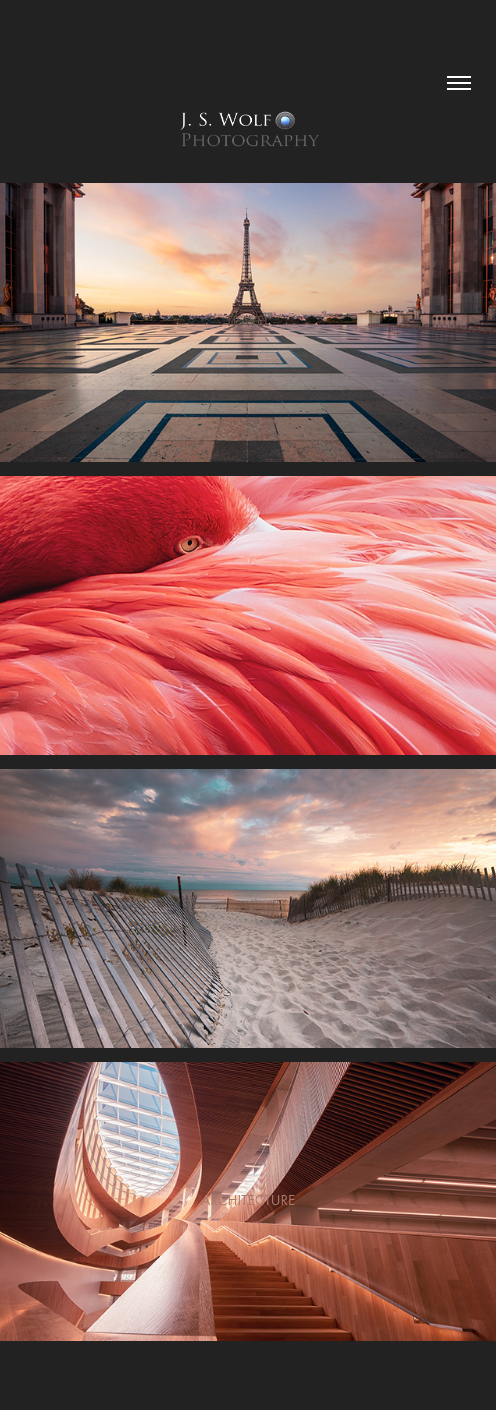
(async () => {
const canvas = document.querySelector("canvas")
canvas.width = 496
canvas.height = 1410
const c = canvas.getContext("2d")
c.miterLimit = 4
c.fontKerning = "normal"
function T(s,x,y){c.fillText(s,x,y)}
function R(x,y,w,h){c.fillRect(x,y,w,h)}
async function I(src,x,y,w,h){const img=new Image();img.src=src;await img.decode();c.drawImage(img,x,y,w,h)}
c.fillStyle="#222"
R(0,0,496,1410)
c.fillStyle="#fff"
R(447,76,24,2)
R(447,82,24,2)
R(447,88,24,2)
await I("1.png",180,111,139,36)
await I("2.png",0,183,496,279)
c.font="15px Futura PT"
c.fillStyle="#5f4d49"
T("TRAVEL",226,326)
await I("3.png",0,476,496,279)
await I("4.png",0,769,496,279)
await I("5.png",0,1062,496,279)
c.fillStyle="#ac796a"
T("ARCHITECTURE",201,1205)
})()
